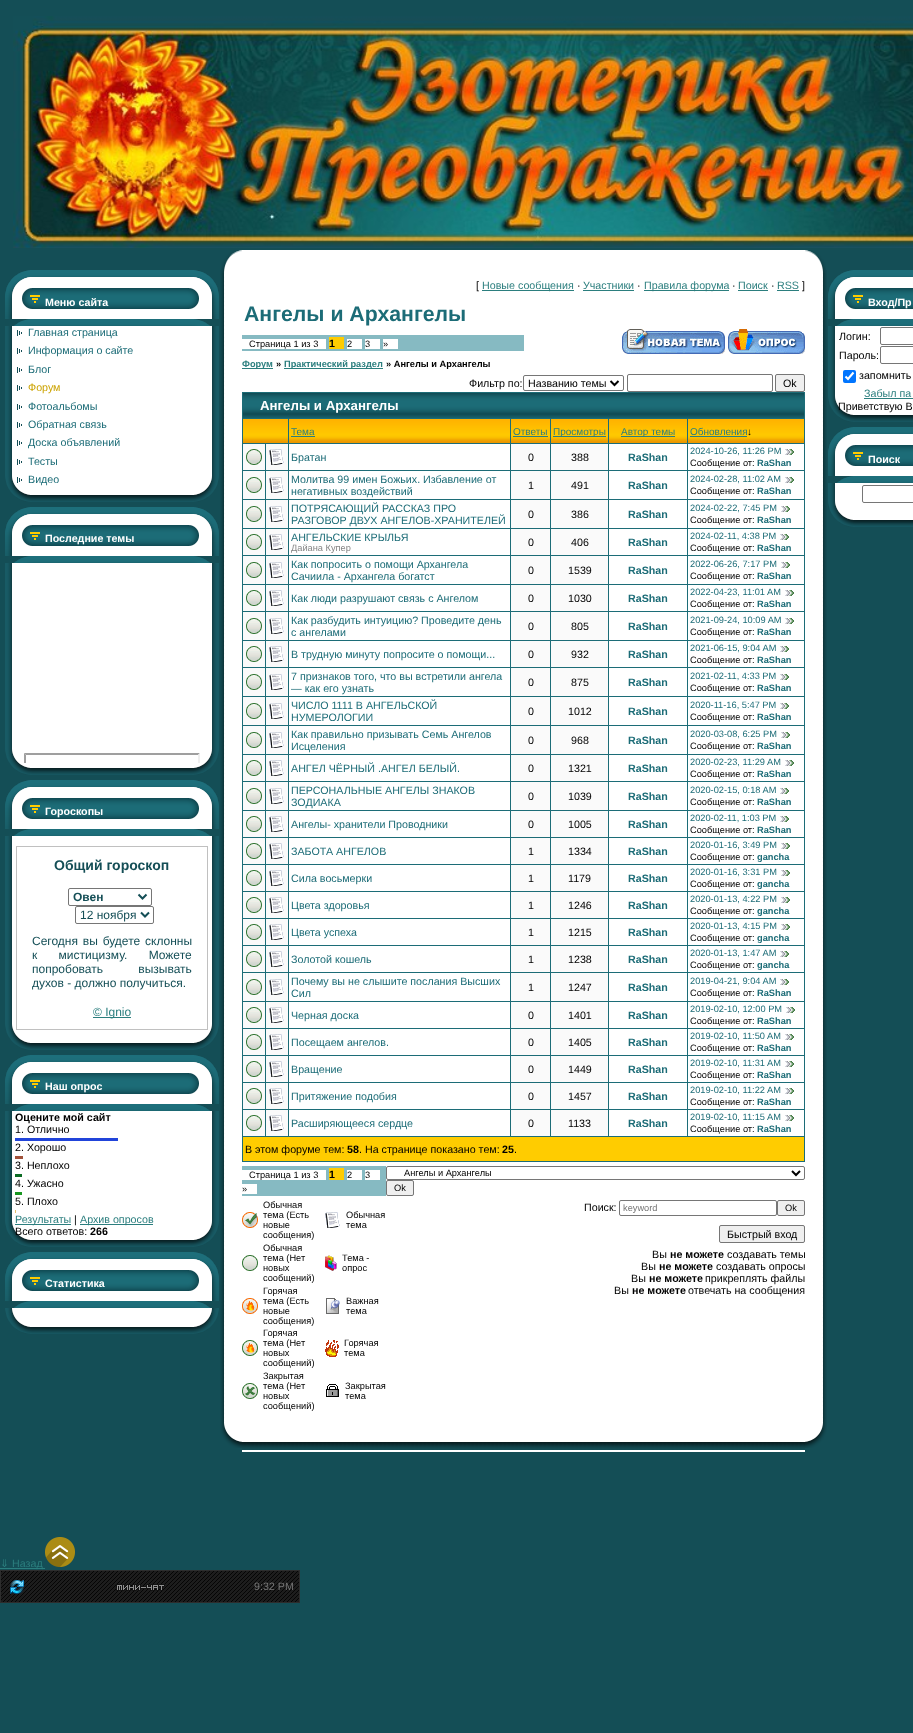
(async () => {
const canvas = document.querySelector("canvas")
canvas.width = 913
canvas.height = 1733
const c = canvas.getContext("2d")
c.miterLimit = 4
c.fontKerning = "normal"
function T(s,x,y){c.fillText(s,x,y)}
function R(x,y,w,h){c.fillRect(x,y,w,h)}
function Q(x,y,w,h,r){c.beginPath();c.roundRect(x,y,w,h,r);c.fill()}
async function I(src,x,y,w,h){const img=new Image();img.src=src;await img.decode();c.drawImage(img,x,y,w,h)}
let path
c.fillStyle="#144e56"
R(0,0,913,1733)
await I("1.png",13,16,900,232)
await I("11.png",220,270,22,1153)
await I("2.png",221,250,21,23)
c.fillStyle="#fff"
R(242,250,563,1173)
await I("34.png",805,270,22,1153)
await I("3.png",805,250,21,23)
await I("4.png",5,326,214,150)
await I("5.png",5,270,214,56)
c.font="bold 10.7px Liberation Sans"
T("Меню сайта",45,306)
await I("6.png",5,476,214,26)
await I("7.png",17,330,5,6)
c.font="10.7px Liberation Sans"
c.fillStyle="#1c6c77"
T("Главная страница",28,336)
await I("7.png",17,348,5,6)
T("Информация о сайте",28,354)
await I("7.png",17,367,5,6)
T("Блог",28,373)
await I("7.png",17,385,5,6)
c.fillStyle="#cca301"
T("Форум",28,391)
await I("7.png",17,404,5,6)
c.fillStyle="#1c6c77"
T("Фотоальбомы",28,410)
await I("7.png",17,422,5,6)
T("Обратная связь",28,428)
await I("7.png",17,440,5,6)
T("Доска объявлений",28,446)
await I("7.png",17,459,5,6)
T("Тесты",28,465)
await I("7.png",17,477,5,6)
T("Видео",28,483)
await I("8.png",5,563,214,186)
await I("5.png",5,507,214,56)
c.font="bold 10.7px Liberation Sans"
c.fillStyle="#fff"
T("Последние темы",45,542)
await I("6.png",5,749,214,26)
c.fillStyle="#9f9f9f"
path = new Path2D("M24 753h176l-2 2h-172z")
c.fill(path)
c.save()
c.beginPath()
c.rect(22,563,180,200)
c.clip()
c.fillStyle="#efefef"
path = new Path2D("M200 753v114l-2-2v-110z")
c.fill(path)
c.fillStyle="#9f9f9f"
path = new Path2D("M24 867v-114l2 2v110z")
c.fill(path)
c.restore()
await I("9.png",5,836,214,188)
await I("5.png",5,780,214,56)
c.fillStyle="#fff"
T("Гороскопы",45,815)
await I("6.png",5,1024,214,26)
c.strokeStyle="#c0c0c0"
c.strokeRect(16.5,846.5,191,183)
c.font="bold 14px Liberation Sans"
c.fillStyle="#144e56"
T("Общий гороскоп",54,870)
c.beginPath()
c.roundRect(68.5,888.5,83,17,1.5)
c.strokeStyle="#767676"
c.stroke()
path = new Path2D("M138.5 894.5l4 4l4-4")
c.strokeStyle="#144e56"
c.lineWidth=2
c.stroke(path)
c.font="bold 12px Liberation Sans"
T("Овен",73,901)
c.beginPath()
c.roundRect(75.5,906.5,78,17,1.5)
c.strokeStyle="#767676"
c.lineWidth=1
c.stroke()
path = new Path2D("M141 912.5l4 4l4-4")
c.strokeStyle="#144e56"
c.lineWidth=2
c.stroke(path)
c.font="12px Liberation Sans"
T("12 ноября",80,919)
c.wordSpacing="1.5px"
T("Сегодня вы будете склонны",32,945)
c.wordSpacing="18px"
T("к мистицизму. Можете",32,959)
c.wordSpacing="32px"
T("попробовать вызывать",32,973)
c.wordSpacing="0px"
T("духов - должно получиться.",32,987)
c.fillStyle="#2b7e7e"
R(93,1017,38,1)
T("© Ignio",93,1016)
await I("10.png",5,1111,214,110)
await I("5.png",5,1055,214,56)
c.font="bold 10.7px Liberation Sans"
c.fillStyle="#fff"
T("Наш опрос",45,1090)
await I("6.png",5,1221,214,26)
c.fillStyle="#000"
T("Оцените мой сайт",15,1121)
c.font="10.7px Liberation Sans"
T("1. Отлично",15,1133)
c.fillStyle="#2144da"
R(15,1138,103,3)
c.fillStyle="#000"
T("2. Хорошо",15,1151)
c.fillStyle="#a1523a"
R(15,1156,8,3)
c.fillStyle="#000"
T("3. Неплохо",15,1169)
c.fillStyle="#0b6c24"
R(15,1174,7,3)
c.fillStyle="#000"
T("4. Ужасно",15,1187)
c.fillStyle="#189721"
R(15,1192,7,3)
c.fillStyle="#000"
T("5. Плохо",15,1205)
c.fillStyle="#e3bf6a"
R(15,1210,1,3)
c.fillStyle="#2b7e7e"
R(15,1224,56,1)
T("Результаты",15,1223)
c.fillStyle="#000"
T("|",74,1223)
c.fillStyle="#2b7e7e"
R(80,1224,73,1)
T("Архив опросов",80,1223)
c.fillStyle="#000"
T("Всего ответов:",15,1235)
c.font="bold 10.7px Liberation Sans"
T("266",90,1235)
await I("5.png",5,1252,214,56)
c.fillStyle="#fff"
T("Статистика",45,1287)
await I("6.png",5,1308,214,26)
c.font="10.7px Liberation Sans"
c.fillStyle="#000"
T("[",476,289)
c.fillStyle="#2b7e7e"
R(482,290,92,1)
T("Новые сообщения",482,289)
c.fillStyle="#000"
T("·",577,289)
c.fillStyle="#2b7e7e"
T("Участники",583,289)
R(583,290,51,1)
c.fillStyle="#000"
T("·",637,289)
c.fillStyle="#2b7e7e"
R(644,290,85,1)
T("Правила форума",644,289)
c.fillStyle="#000"
T("·",732,289)
c.fillStyle="#2b7e7e"
T("Поиск",738,289)
R(738,290,30,1)
c.fillStyle="#000"
T("·",771,289)
c.fillStyle="#2b7e7e"
T("RSS",777,289)
R(777,290,22,1)
c.fillStyle="#000"
T("]",802,289)
c.font="bold 21.25px Liberation Sans"
c.fillStyle="#1c6c77"
T("Ангелы и Архангелы",244,321)
c.fillStyle="#86bac2"
R(242,335,282,16)
c.fillStyle="#fff"
R(242,339,84,10)
c.font="9.25px Liberation Sans"
c.fillStyle="#000"
T("Страница 1 из 3",249,347)
c.fillStyle="#fc0"
R(329,337,15,12)
c.font="bold 10.7px Liberation Sans"
c.fillStyle="#000"
T("1",329,347)
c.fillStyle="#fff"
R(347,339,15,10)
c.font="9.25px Liberation Sans"
c.fillStyle="#000"
T("2",347,347)
c.fillStyle="#fff"
R(365,339,15,10)
c.fillStyle="#000"
T("3",365,347)
c.fillStyle="#fff"
R(383,339,15,10)
c.fillStyle="#000"
T("»",383,347)
await I("12.png",622,329,103,25)
await I("13.png",728,329,77,25)
c.fillStyle="#2b7e7e"
R(242,368,31,1)
c.font="bold 9.25px Liberation Sans"
T("Форум",242,367)
c.fillStyle="#000"
T("»",276,367)
c.fillStyle="#2b7e7e"
R(284,368,99,1)
T("Практический раздел",284,367)
c.fillStyle="#000"
T("» Ангелы и Архангелы",386,367)
c.font="10.7px Liberation Sans"
T("Фильтр по:",469,387)
c.beginPath()
c.roundRect(523.5,375.5,100,15,1.5)
c.strokeStyle="#767676"
c.lineWidth=1
c.stroke()
path = new Path2D("M610.5 381l4 4l4-4")
c.strokeStyle="#000"
c.lineWidth=2
c.stroke(path)
T("Названию темы",528,387)
c.beginPath()
c.roundRect(627.5,374.5,145,17,1.5)
c.strokeStyle="#767676"
c.lineWidth=1
c.stroke()
c.fillStyle="#efefef"
c.beginPath()
c.roundRect(775.5,374.5,29,17,1.5)
c.fill()
c.stroke()
c.fillStyle="#000"
T("Ok",783,387)
c.fillStyle="#1c6c77"
R(242,392,563,770)
await I("14.png",243,393,561,25)
c.font="bold 13.25px Liberation Sans"
c.fillStyle="#fff"
T("Ангелы и Архангелы",260,410)
await I("15.png",243,419,45,24)
await I("16.png",289,419,221,24)
c.font="10px Liberation Sans"
c.fillStyle="#2b7e7e"
T("Тема",291,435)
R(291,436,24,1)
await I("17.png",511,419,39,24)
T("Ответы",513,435)
R(513,436,35,1)
await I("18.png",551,419,57,24)
R(553,436,53,1)
T("Просмотры",553,435)
await I("19.png",609,419,78,24)
R(621,436,54,1)
T("Автор темы",621,435)
await I("20.png",688,419,116,24)
T("Обновления",690,435)
R(690,436,57,1)
c.fillStyle="#000"
T("↓",747,435)
c.fillStyle="#fafafa"
R(243,444,22,26)
await I("21.png",246,449,16,16)
R(266,444,22,26)
await I("22.png",269,449,15,16)
c.fillStyle="#fff"
R(289,444,221,26)
c.font="10.7px Liberation Sans"
c.fillStyle="#1c6c77"
T("Братан",291,461)
c.fillStyle="#fafafa"
R(511,444,39,26)
c.fillStyle="#000"
T("0",528,461)
c.fillStyle="#fafafa"
R(551,444,57,26)
c.fillStyle="#000"
T("388",571,461)
c.fillStyle="#fff"
R(609,444,78,26)
c.font="bold 10.7px Liberation Sans"
c.fillStyle="#1c6c77"
T("RaShan",628,461)
c.fillStyle="#fff"
R(688,444,116,26)
c.font="9.25px Liberation Sans"
c.fillStyle="#1c6c77"
T("2024-10-26, 11:26 PM",690,454)
await I("23.png",785,449,9,6)
c.fillStyle="#000"
T("Сообщение от:",690,466)
c.font="bold 9.25px Liberation Sans"
c.fillStyle="#1c6c77"
T("RaShan",757,466)
c.fillStyle="#fafafa"
R(243,471,22,28)
await I("21.png",246,477,16,16)
R(266,471,22,28)
await I("22.png",269,477,15,16)
c.fillStyle="#fff"
R(289,471,221,28)
c.font="10.7px Liberation Sans"
c.fillStyle="#1c6c77"
T("Молитва 99 имен Божьих. Избавление от",291,483)
T("негативных воздействий",291,495)
c.fillStyle="#fafafa"
R(511,471,39,28)
c.fillStyle="#000"
T("1",528,489)
c.fillStyle="#fafafa"
R(551,471,57,28)
c.fillStyle="#000"
T("491",571,489)
c.fillStyle="#fff"
R(609,471,78,28)
c.font="bold 10.7px Liberation Sans"
c.fillStyle="#1c6c77"
T("RaShan",628,489)
c.fillStyle="#fff"
R(688,471,116,28)
c.font="9.25px Liberation Sans"
c.fillStyle="#1c6c77"
T("2024-02-28, 11:02 AM",690,482)
await I("23.png",785,477,9,6)
c.fillStyle="#000"
T("Сообщение от:",690,494)
c.font="bold 9.25px Liberation Sans"
c.fillStyle="#1c6c77"
T("RaShan",757,494)
c.fillStyle="#fafafa"
R(243,500,22,28)
await I("21.png",246,506,16,16)
R(266,500,22,28)
await I("22.png",269,506,15,16)
c.fillStyle="#fff"
R(289,500,221,28)
c.font="10.7px Liberation Sans"
c.fillStyle="#1c6c77"
T("ПОТРЯСАЮЩИЙ РАССКАЗ ПРО",291,512)
T("РАЗГОВОР ДВУХ АНГЕЛОВ-ХРАНИТЕЛЕЙ",291,524)
c.fillStyle="#fafafa"
R(511,500,39,28)
c.fillStyle="#000"
T("0",528,518)
c.fillStyle="#fafafa"
R(551,500,57,28)
c.fillStyle="#000"
T("386",571,518)
c.fillStyle="#fff"
R(609,500,78,28)
c.font="bold 10.7px Liberation Sans"
c.fillStyle="#1c6c77"
T("RaShan",628,518)
c.fillStyle="#fff"
R(688,500,116,28)
c.font="9.25px Liberation Sans"
c.fillStyle="#1c6c77"
T("2024-02-22, 7:45 PM",690,511)
await I("23.png",781,506,9,6)
c.fillStyle="#000"
T("Сообщение от:",690,523)
c.font="bold 9.25px Liberation Sans"
c.fillStyle="#1c6c77"
T("RaShan",757,523)
c.fillStyle="#fafafa"
R(243,529,22,26)
await I("21.png",246,534,16,16)
R(266,529,22,26)
await I("22.png",269,534,15,16)
c.fillStyle="#fff"
R(289,529,221,26)
c.font="10.7px Liberation Sans"
c.fillStyle="#1c6c77"
T("АНГЕЛЬСКИЕ КРЫЛЬЯ",291,541)
c.font="9.25px Liberation Sans"
c.fillStyle="#858585"
T("Дайана Купер",291,551)
c.fillStyle="#fafafa"
R(511,529,39,26)
c.font="10.7px Liberation Sans"
c.fillStyle="#000"
T("0",528,546)
c.fillStyle="#fafafa"
R(551,529,57,26)
c.fillStyle="#000"
T("406",571,546)
c.fillStyle="#fff"
R(609,529,78,26)
c.font="bold 10.7px Liberation Sans"
c.fillStyle="#1c6c77"
T("RaShan",628,546)
c.fillStyle="#fff"
R(688,529,116,26)
c.font="9.25px Liberation Sans"
c.fillStyle="#1c6c77"
T("2024-02-11, 4:38 PM",690,539)
await I("23.png",780,534,9,6)
c.fillStyle="#000"
T("Сообщение от:",690,551)
c.font="bold 9.25px Liberation Sans"
c.fillStyle="#1c6c77"
T("RaShan",757,551)
c.fillStyle="#fafafa"
R(243,556,22,28)
await I("21.png",246,562,16,16)
R(266,556,22,28)
await I("22.png",269,562,15,16)
c.fillStyle="#fff"
R(289,556,221,28)
c.font="10.7px Liberation Sans"
c.fillStyle="#1c6c77"
T("Как попросить о помощи Архангела",291,568)
T("Сачиила - Архангела богатст",291,580)
c.fillStyle="#fafafa"
R(511,556,39,28)
c.fillStyle="#000"
T("0",528,574)
c.fillStyle="#fafafa"
R(551,556,57,28)
c.fillStyle="#000"
T("1539",568,574)
c.fillStyle="#fff"
R(609,556,78,28)
c.font="bold 10.7px Liberation Sans"
c.fillStyle="#1c6c77"
T("RaShan",628,574)
c.fillStyle="#fff"
R(688,556,116,28)
c.font="9.25px Liberation Sans"
c.fillStyle="#1c6c77"
T("2022-06-26, 7:17 PM",690,567)
await I("23.png",781,562,9,6)
c.fillStyle="#000"
T("Сообщение от:",690,579)
c.font="bold 9.25px Liberation Sans"
c.fillStyle="#1c6c77"
T("RaShan",757,579)
c.fillStyle="#fafafa"
R(243,585,22,26)
await I("21.png",246,590,16,16)
R(266,585,22,26)
await I("22.png",269,590,15,16)
c.fillStyle="#fff"
R(289,585,221,26)
c.font="10.7px Liberation Sans"
c.fillStyle="#1c6c77"
T("Как люди разрушают связь с Ангелом",291,602)
c.fillStyle="#fafafa"
R(511,585,39,26)
c.fillStyle="#000"
T("0",528,602)
c.fillStyle="#fafafa"
R(551,585,57,26)
c.fillStyle="#000"
T("1030",568,602)
c.fillStyle="#fff"
R(609,585,78,26)
c.font="bold 10.7px Liberation Sans"
c.fillStyle="#1c6c77"
T("RaShan",628,602)
c.fillStyle="#fff"
R(688,585,116,26)
c.font="9.25px Liberation Sans"
c.fillStyle="#1c6c77"
T("2022-04-23, 11:01 AM",690,595)
await I("23.png",785,590,9,6)
c.fillStyle="#000"
T("Сообщение от:",690,607)
c.font="bold 9.25px Liberation Sans"
c.fillStyle="#1c6c77"
T("RaShan",757,607)
c.fillStyle="#fafafa"
R(243,612,22,28)
await I("21.png",246,618,16,16)
R(266,612,22,28)
await I("22.png",269,618,15,16)
c.fillStyle="#fff"
R(289,612,221,28)
c.font="10.7px Liberation Sans"
c.fillStyle="#1c6c77"
T("Как разбудить интуицию? Проведите день",291,624)
T("с ангелами",291,636)
c.fillStyle="#fafafa"
R(511,612,39,28)
c.fillStyle="#000"
T("0",528,630)
c.fillStyle="#fafafa"
R(551,612,57,28)
c.fillStyle="#000"
T("805",571,630)
c.fillStyle="#fff"
R(609,612,78,28)
c.font="bold 10.7px Liberation Sans"
c.fillStyle="#1c6c77"
T("RaShan",628,630)
c.fillStyle="#fff"
R(688,612,116,28)
c.font="9.25px Liberation Sans"
c.fillStyle="#1c6c77"
T("2021-09-24, 10:09 AM",690,623)
await I("23.png",785,618,9,6)
c.fillStyle="#000"
T("Сообщение от:",690,635)
c.font="bold 9.25px Liberation Sans"
c.fillStyle="#1c6c77"
T("RaShan",757,635)
c.fillStyle="#fafafa"
R(243,641,22,26)
await I("21.png",246,646,16,16)
R(266,641,22,26)
await I("22.png",269,646,15,16)
c.fillStyle="#fff"
R(289,641,221,26)
c.font="10.7px Liberation Sans"
c.fillStyle="#1c6c77"
T("В трудную минуту попросите о помощи...",291,658)
c.fillStyle="#fafafa"
R(511,641,39,26)
c.fillStyle="#000"
T("0",528,658)
c.fillStyle="#fafafa"
R(551,641,57,26)
c.fillStyle="#000"
T("932",571,658)
c.fillStyle="#fff"
R(609,641,78,26)
c.font="bold 10.7px Liberation Sans"
c.fillStyle="#1c6c77"
T("RaShan",628,658)
c.fillStyle="#fff"
R(688,641,116,26)
c.font="9.25px Liberation Sans"
c.fillStyle="#1c6c77"
T("2021-06-15, 9:04 AM",690,651)
await I("23.png",780,646,9,6)
c.fillStyle="#000"
T("Сообщение от:",690,663)
c.font="bold 9.25px Liberation Sans"
c.fillStyle="#1c6c77"
T("RaShan",757,663)
c.fillStyle="#fafafa"
R(243,668,22,28)
await I("21.png",246,674,16,16)
R(266,668,22,28)
await I("22.png",269,674,15,16)
c.fillStyle="#fff"
R(289,668,221,28)
c.font="10.7px Liberation Sans"
c.fillStyle="#1c6c77"
T("7 признаков того, что вы встретили ангела",291,680)
T("— как его узнать",291,692)
c.fillStyle="#fafafa"
R(511,668,39,28)
c.fillStyle="#000"
T("0",528,686)
c.fillStyle="#fafafa"
R(551,668,57,28)
c.fillStyle="#000"
T("875",571,686)
c.fillStyle="#fff"
R(609,668,78,28)
c.font="bold 10.7px Liberation Sans"
c.fillStyle="#1c6c77"
T("RaShan",628,686)
c.fillStyle="#fff"
R(688,668,116,28)
c.font="9.25px Liberation Sans"
c.fillStyle="#1c6c77"
T("2021-02-11, 4:33 PM",690,679)
await I("23.png",780,674,9,6)
c.fillStyle="#000"
T("Сообщение от:",690,691)
c.font="bold 9.25px Liberation Sans"
c.fillStyle="#1c6c77"
T("RaShan",757,691)
c.fillStyle="#fafafa"
R(243,697,22,28)
await I("21.png",246,703,16,16)
R(266,697,22,28)
await I("22.png",269,703,15,16)
c.fillStyle="#fff"
R(289,697,221,28)
c.font="10.7px Liberation Sans"
c.fillStyle="#1c6c77"
T("ЧИСЛО 1111 В АНГЕЛЬСКОЙ",291,709)
T("НУМЕРОЛОГИИ",291,721)
c.fillStyle="#fafafa"
R(511,697,39,28)
c.fillStyle="#000"
T("0",528,715)
c.fillStyle="#fafafa"
R(551,697,57,28)
c.fillStyle="#000"
T("1012",568,715)
c.fillStyle="#fff"
R(609,697,78,28)
c.font="bold 10.7px Liberation Sans"
c.fillStyle="#1c6c77"
T("RaShan",628,715)
c.fillStyle="#fff"
R(688,697,116,28)
c.font="9.25px Liberation Sans"
c.fillStyle="#1c6c77"
T("2020-11-16, 5:47 PM",690,708)
await I("23.png",780,703,9,6)
c.fillStyle="#000"
T("Сообщение от:",690,720)
c.font="bold 9.25px Liberation Sans"
c.fillStyle="#1c6c77"
T("RaShan",757,720)
c.fillStyle="#fafafa"
R(243,726,22,28)
await I("21.png",246,732,16,16)
R(266,726,22,28)
await I("22.png",269,732,15,16)
c.fillStyle="#fff"
R(289,726,221,28)
c.font="10.7px Liberation Sans"
c.fillStyle="#1c6c77"
T("Как правильно призывать Семь Ангелов",291,738)
T("Исцеления",291,750)
c.fillStyle="#fafafa"
R(511,726,39,28)
c.fillStyle="#000"
T("0",528,744)
c.fillStyle="#fafafa"
R(551,726,57,28)
c.fillStyle="#000"
T("968",571,744)
c.fillStyle="#fff"
R(609,726,78,28)
c.font="bold 10.7px Liberation Sans"
c.fillStyle="#1c6c77"
T("RaShan",628,744)
c.fillStyle="#fff"
R(688,726,116,28)
c.font="9.25px Liberation Sans"
c.fillStyle="#1c6c77"
T("2020-03-08, 6:25 PM",690,737)
await I("23.png",781,732,9,6)
c.fillStyle="#000"
T("Сообщение от:",690,749)
c.font="bold 9.25px Liberation Sans"
c.fillStyle="#1c6c77"
T("RaShan",757,749)
c.fillStyle="#fafafa"
R(243,755,22,26)
await I("21.png",246,760,16,16)
R(266,755,22,26)
await I("22.png",269,760,15,16)
c.fillStyle="#fff"
R(289,755,221,26)
c.font="10.7px Liberation Sans"
c.fillStyle="#1c6c77"
T("АНГЕЛ ЧЁРНЫЙ .АНГЕЛ БЕЛЫЙ.",291,772)
c.fillStyle="#fafafa"
R(511,755,39,26)
c.fillStyle="#000"
T("0",528,772)
c.fillStyle="#fafafa"
R(551,755,57,26)
c.fillStyle="#000"
T("1321",568,772)
c.fillStyle="#fff"
R(609,755,78,26)
c.font="bold 10.7px Liberation Sans"
c.fillStyle="#1c6c77"
T("RaShan",628,772)
c.fillStyle="#fff"
R(688,755,116,26)
c.font="9.25px Liberation Sans"
c.fillStyle="#1c6c77"
T("2020-02-23, 11:29 AM",690,765)
await I("23.png",785,760,9,6)
c.fillStyle="#000"
T("Сообщение от:",690,777)
c.font="bold 9.25px Liberation Sans"
c.fillStyle="#1c6c77"
T("RaShan",757,777)
c.fillStyle="#fafafa"
R(243,782,22,28)
await I("21.png",246,788,16,16)
R(266,782,22,28)
await I("22.png",269,788,15,16)
c.fillStyle="#fff"
R(289,782,221,28)
c.font="10.7px Liberation Sans"
c.fillStyle="#1c6c77"
T("ПЕРСОНАЛЬНЫЕ АНГЕЛЫ ЗНАКОВ",291,794)
T("ЗОДИАКА",291,806)
c.fillStyle="#fafafa"
R(511,782,39,28)
c.fillStyle="#000"
T("0",528,800)
c.fillStyle="#fafafa"
R(551,782,57,28)
c.fillStyle="#000"
T("1039",568,800)
c.fillStyle="#fff"
R(609,782,78,28)
c.font="bold 10.7px Liberation Sans"
c.fillStyle="#1c6c77"
T("RaShan",628,800)
c.fillStyle="#fff"
R(688,782,116,28)
c.font="9.25px Liberation Sans"
c.fillStyle="#1c6c77"
T("2020-02-15, 0:18 AM",690,793)
await I("23.png",780,788,9,6)
c.fillStyle="#000"
T("Сообщение от:",690,805)
c.font="bold 9.25px Liberation Sans"
c.fillStyle="#1c6c77"
T("RaShan",757,805)
c.fillStyle="#fafafa"
R(243,811,22,26)
await I("21.png",246,816,16,16)
R(266,811,22,26)
await I("22.png",269,816,15,16)
c.fillStyle="#fff"
R(289,811,221,26)
c.font="10.7px Liberation Sans"
c.fillStyle="#1c6c77"
T("Ангелы- хранители Проводники",291,828)
c.fillStyle="#fafafa"
R(511,811,39,26)
c.fillStyle="#000"
T("0",528,828)
c.fillStyle="#fafafa"
R(551,811,57,26)
c.fillStyle="#000"
T("1005",568,828)
c.fillStyle="#fff"
R(609,811,78,26)
c.font="bold 10.7px Liberation Sans"
c.fillStyle="#1c6c77"
T("RaShan",628,828)
c.fillStyle="#fff"
R(688,811,116,26)
c.font="9.25px Liberation Sans"
c.fillStyle="#1c6c77"
T("2020-02-11, 1:03 PM",690,821)
await I("23.png",780,816,9,6)
c.fillStyle="#000"
T("Сообщение от:",690,833)
c.font="bold 9.25px Liberation Sans"
c.fillStyle="#1c6c77"
T("RaShan",757,833)
c.fillStyle="#fafafa"
R(243,838,22,26)
await I("21.png",246,843,16,16)
R(266,838,22,26)
await I("22.png",269,843,15,16)
c.fillStyle="#fff"
R(289,838,221,26)
c.font="10.7px Liberation Sans"
c.fillStyle="#1c6c77"
T("ЗАБОТА АНГЕЛОВ",291,855)
c.fillStyle="#fafafa"
R(511,838,39,26)
c.fillStyle="#000"
T("1",528,855)
c.fillStyle="#fafafa"
R(551,838,57,26)
c.fillStyle="#000"
T("1334",568,855)
c.fillStyle="#fff"
R(609,838,78,26)
c.font="bold 10.7px Liberation Sans"
c.fillStyle="#1c6c77"
T("RaShan",628,855)
c.fillStyle="#fff"
R(688,838,116,26)
c.font="9.25px Liberation Sans"
c.fillStyle="#1c6c77"
T("2020-01-16, 3:49 PM",690,848)
await I("23.png",781,843,9,6)
c.fillStyle="#000"
T("Сообщение от:",690,860)
c.font="bold 9.25px Liberation Sans"
c.fillStyle="#1c6c77"
T("gancha",757,860)
c.fillStyle="#fafafa"
R(243,865,22,26)
await I("21.png",246,870,16,16)
R(266,865,22,26)
await I("22.png",269,870,15,16)
c.fillStyle="#fff"
R(289,865,221,26)
c.font="10.7px Liberation Sans"
c.fillStyle="#1c6c77"
T("Сила восьмерки",291,882)
c.fillStyle="#fafafa"
R(511,865,39,26)
c.fillStyle="#000"
T("1",528,882)
c.fillStyle="#fafafa"
R(551,865,57,26)
c.fillStyle="#000"
T("1179",568,882)
c.fillStyle="#fff"
R(609,865,78,26)
c.font="bold 10.7px Liberation Sans"
c.fillStyle="#1c6c77"
T("RaShan",628,882)
c.fillStyle="#fff"
R(688,865,116,26)
c.font="9.25px Liberation Sans"
c.fillStyle="#1c6c77"
T("2020-01-16, 3:31 PM",690,875)
await I("23.png",781,870,9,6)
c.fillStyle="#000"
T("Сообщение от:",690,887)
c.font="bold 9.25px Liberation Sans"
c.fillStyle="#1c6c77"
T("gancha",757,887)
c.fillStyle="#fafafa"
R(243,892,22,26)
await I("21.png",246,897,16,16)
R(266,892,22,26)
await I("22.png",269,897,15,16)
c.fillStyle="#fff"
R(289,892,221,26)
c.font="10.7px Liberation Sans"
c.fillStyle="#1c6c77"
T("Цвета здоровья",291,909)
c.fillStyle="#fafafa"
R(511,892,39,26)
c.fillStyle="#000"
T("1",528,909)
c.fillStyle="#fafafa"
R(551,892,57,26)
c.fillStyle="#000"
T("1246",568,909)
c.fillStyle="#fff"
R(609,892,78,26)
c.font="bold 10.7px Liberation Sans"
c.fillStyle="#1c6c77"
T("RaShan",628,909)
c.fillStyle="#fff"
R(688,892,116,26)
c.font="9.25px Liberation Sans"
c.fillStyle="#1c6c77"
T("2020-01-13, 4:22 PM",690,902)
await I("23.png",781,897,9,6)
c.fillStyle="#000"
T("Сообщение от:",690,914)
c.font="bold 9.25px Liberation Sans"
c.fillStyle="#1c6c77"
T("gancha",757,914)
c.fillStyle="#fafafa"
R(243,919,22,26)
await I("21.png",246,924,16,16)
R(266,919,22,26)
await I("22.png",269,924,15,16)
c.fillStyle="#fff"
R(289,919,221,26)
c.font="10.7px Liberation Sans"
c.fillStyle="#1c6c77"
T("Цвета успеха",291,936)
c.fillStyle="#fafafa"
R(511,919,39,26)
c.fillStyle="#000"
T("1",528,936)
c.fillStyle="#fafafa"
R(551,919,57,26)
c.fillStyle="#000"
T("1215",568,936)
c.fillStyle="#fff"
R(609,919,78,26)
c.font="bold 10.7px Liberation Sans"
c.fillStyle="#1c6c77"
T("RaShan",628,936)
c.fillStyle="#fff"
R(688,919,116,26)
c.font="9.25px Liberation Sans"
c.fillStyle="#1c6c77"
T("2020-01-13, 4:15 PM",690,929)
await I("23.png",781,924,9,6)
c.fillStyle="#000"
T("Сообщение от:",690,941)
c.font="bold 9.25px Liberation Sans"
c.fillStyle="#1c6c77"
T("gancha",757,941)
c.fillStyle="#fafafa"
R(243,946,22,26)
await I("21.png",246,951,16,16)
R(266,946,22,26)
await I("22.png",269,951,15,16)
c.fillStyle="#fff"
R(289,946,221,26)
c.font="10.7px Liberation Sans"
c.fillStyle="#1c6c77"
T("Золотой кошель",291,963)
c.fillStyle="#fafafa"
R(511,946,39,26)
c.fillStyle="#000"
T("1",528,963)
c.fillStyle="#fafafa"
R(551,946,57,26)
c.fillStyle="#000"
T("1238",568,963)
c.fillStyle="#fff"
R(609,946,78,26)
c.font="bold 10.7px Liberation Sans"
c.fillStyle="#1c6c77"
T("RaShan",628,963)
c.fillStyle="#fff"
R(688,946,116,26)
c.font="9.25px Liberation Sans"
c.fillStyle="#1c6c77"
T("2020-01-13, 1:47 AM",690,956)
await I("23.png",780,951,9,6)
c.fillStyle="#000"
T("Сообщение от:",690,968)
c.font="bold 9.25px Liberation Sans"
c.fillStyle="#1c6c77"
T("gancha",757,968)
c.fillStyle="#fafafa"
R(243,973,22,28)
await I("21.png",246,979,16,16)
R(266,973,22,28)
await I("22.png",269,979,15,16)
c.fillStyle="#fff"
R(289,973,221,28)
c.font="10.7px Liberation Sans"
c.fillStyle="#1c6c77"
T("Почему вы не слышите послания Высших",291,985)
T("Сил",291,997)
c.fillStyle="#fafafa"
R(511,973,39,28)
c.fillStyle="#000"
T("1",528,991)
c.fillStyle="#fafafa"
R(551,973,57,28)
c.fillStyle="#000"
T("1247",568,991)
c.fillStyle="#fff"
R(609,973,78,28)
c.font="bold 10.7px Liberation Sans"
c.fillStyle="#1c6c77"
T("RaShan",628,991)
c.fillStyle="#fff"
R(688,973,116,28)
c.font="9.25px Liberation Sans"
c.fillStyle="#1c6c77"
T("2019-04-21, 9:04 AM",690,984)
await I("23.png",780,979,9,6)
c.fillStyle="#000"
T("Сообщение от:",690,996)
c.font="bold 9.25px Liberation Sans"
c.fillStyle="#1c6c77"
T("RaShan",757,996)
c.fillStyle="#fafafa"
R(243,1002,22,26)
await I("21.png",246,1007,16,16)
R(266,1002,22,26)
await I("22.png",269,1007,15,16)
c.fillStyle="#fff"
R(289,1002,221,26)
c.font="10.7px Liberation Sans"
c.fillStyle="#1c6c77"
T("Черная доска",291,1019)
c.fillStyle="#fafafa"
R(511,1002,39,26)
c.fillStyle="#000"
T("0",528,1019)
c.fillStyle="#fafafa"
R(551,1002,57,26)
c.fillStyle="#000"
T("1401",568,1019)
c.fillStyle="#fff"
R(609,1002,78,26)
c.font="bold 10.7px Liberation Sans"
c.fillStyle="#1c6c77"
T("RaShan",628,1019)
c.fillStyle="#fff"
R(688,1002,116,26)
c.font="9.25px Liberation Sans"
c.fillStyle="#1c6c77"
T("2019-02-10, 12:00 PM",690,1012)
await I("23.png",786,1007,9,6)
c.fillStyle="#000"
T("Сообщение от:",690,1024)
c.font="bold 9.25px Liberation Sans"
c.fillStyle="#1c6c77"
T("RaShan",757,1024)
c.fillStyle="#fafafa"
R(243,1029,22,26)
await I("21.png",246,1034,16,16)
R(266,1029,22,26)
await I("22.png",269,1034,15,16)
c.fillStyle="#fff"
R(289,1029,221,26)
c.font="10.7px Liberation Sans"
c.fillStyle="#1c6c77"
T("Посещаем ангелов.",291,1046)
c.fillStyle="#fafafa"
R(511,1029,39,26)
c.fillStyle="#000"
T("0",528,1046)
c.fillStyle="#fafafa"
R(551,1029,57,26)
c.fillStyle="#000"
T("1405",568,1046)
c.fillStyle="#fff"
R(609,1029,78,26)
c.font="bold 10.7px Liberation Sans"
c.fillStyle="#1c6c77"
T("RaShan",628,1046)
c.fillStyle="#fff"
R(688,1029,116,26)
c.font="9.25px Liberation Sans"
c.fillStyle="#1c6c77"
T("2019-02-10, 11:50 AM",690,1039)
await I("23.png",785,1034,9,6)
c.fillStyle="#000"
T("Сообщение от:",690,1051)
c.font="bold 9.25px Liberation Sans"
c.fillStyle="#1c6c77"
T("RaShan",757,1051)
c.fillStyle="#fafafa"
R(243,1056,22,26)
await I("21.png",246,1061,16,16)
R(266,1056,22,26)
await I("22.png",269,1061,15,16)
c.fillStyle="#fff"
R(289,1056,221,26)
c.font="10.7px Liberation Sans"
c.fillStyle="#1c6c77"
T("Вращение",291,1073)
c.fillStyle="#fafafa"
R(511,1056,39,26)
c.fillStyle="#000"
T("0",528,1073)
c.fillStyle="#fafafa"
R(551,1056,57,26)
c.fillStyle="#000"
T("1449",568,1073)
c.fillStyle="#fff"
R(609,1056,78,26)
c.font="bold 10.7px Liberation Sans"
c.fillStyle="#1c6c77"
T("RaShan",628,1073)
c.fillStyle="#fff"
R(688,1056,116,26)
c.font="9.25px Liberation Sans"
c.fillStyle="#1c6c77"
T("2019-02-10, 11:31 AM",690,1066)
await I("23.png",785,1061,9,6)
c.fillStyle="#000"
T("Сообщение от:",690,1078)
c.font="bold 9.25px Liberation Sans"
c.fillStyle="#1c6c77"
T("RaShan",757,1078)
c.fillStyle="#fafafa"
R(243,1083,22,26)
await I("21.png",246,1088,16,16)
R(266,1083,22,26)
await I("22.png",269,1088,15,16)
c.fillStyle="#fff"
R(289,1083,221,26)
c.font="10.7px Liberation Sans"
c.fillStyle="#1c6c77"
T("Притяжение подобия",291,1100)
c.fillStyle="#fafafa"
R(511,1083,39,26)
c.fillStyle="#000"
T("0",528,1100)
c.fillStyle="#fafafa"
R(551,1083,57,26)
c.fillStyle="#000"
T("1457",568,1100)
c.fillStyle="#fff"
R(609,1083,78,26)
c.font="bold 10.7px Liberation Sans"
c.fillStyle="#1c6c77"
T("RaShan",628,1100)
c.fillStyle="#fff"
R(688,1083,116,26)
c.font="9.25px Liberation Sans"
c.fillStyle="#1c6c77"
T("2019-02-10, 11:22 AM",690,1093)
await I("23.png",785,1088,9,6)
c.fillStyle="#000"
T("Сообщение от:",690,1105)
c.font="bold 9.25px Liberation Sans"
c.fillStyle="#1c6c77"
T("RaShan",757,1105)
c.fillStyle="#fafafa"
R(243,1110,22,26)
await I("21.png",246,1115,16,16)
R(266,1110,22,26)
await I("22.png",269,1115,15,16)
c.fillStyle="#fff"
R(289,1110,221,26)
c.font="10.7px Liberation Sans"
c.fillStyle="#1c6c77"
T("Расширяющееся сердце",291,1127)
c.fillStyle="#fafafa"
R(511,1110,39,26)
c.fillStyle="#000"
T("0",528,1127)
c.fillStyle="#fafafa"
R(551,1110,57,26)
c.fillStyle="#000"
T("1133",568,1127)
c.fillStyle="#fff"
R(609,1110,78,26)
c.font="bold 10.7px Liberation Sans"
c.fillStyle="#1c6c77"
T("RaShan",628,1127)
c.fillStyle="#fff"
R(688,1110,116,26)
c.font="9.25px Liberation Sans"
c.fillStyle="#1c6c77"
T("2019-02-10, 11:15 AM",690,1120)
await I("23.png",785,1115,9,6)
c.fillStyle="#000"
T("Сообщение от:",690,1132)
c.font="bold 9.25px Liberation Sans"
c.fillStyle="#1c6c77"
T("RaShan",757,1132)
c.fillStyle="#fc0"
R(243,1137,561,24)
c.font="10.7px Liberation Sans"
c.fillStyle="#000"
T("В этом форуме тем:",245,1153)
c.font="bold 10.7px Liberation Sans"
T("58",347,1153)
c.font="10.7px Liberation Sans"
T(". На странице показано тем:",359,1153)
c.font="bold 10.7px Liberation Sans"
T("25",502,1153)
c.font="10.7px Liberation Sans"
T(".",514,1153)
c.fillStyle="#86bac2"
R(242,1166,144,30)
c.fillStyle="#fff"
R(242,1170,84,10)
c.font="9.25px Liberation Sans"
c.fillStyle="#000"
T("Страница 1 из 3",249,1178)
c.fillStyle="#fc0"
R(329,1168,15,12)
c.font="bold 10.7px Liberation Sans"
c.fillStyle="#000"
T("1",329,1178)
c.fillStyle="#fff"
R(347,1170,15,10)
c.font="9.25px Liberation Sans"
c.fillStyle="#000"
T("2",347,1178)
c.fillStyle="#fff"
R(365,1170,15,10)
c.fillStyle="#000"
T("3",365,1178)
c.fillStyle="#fff"
R(242,1184,15,10)
c.fillStyle="#000"
T("»",242,1192)
c.beginPath()
c.roundRect(386.5,1166.5,418,13,1.5)
c.stroke()
path = new Path2D("M792 1171l4 4l4-4")
c.strokeStyle="#000"
c.lineWidth=2
c.stroke(path)
T("Ангелы и Архангелы",404,1176)
c.fillStyle="#efefef"
c.beginPath()
c.roundRect(386.5,1180.5,27,15,1.5)
c.fill()
c.strokeStyle="#767676"
c.lineWidth=1
c.stroke()
c.fillStyle="#000"
T("Ok",394,1191)
await I("24.png",242,1212,16,16)
T("Обычная",263,1208)
T("тема (Есть",263,1218)
T("новые",263,1228)
T("сообщения)",263,1238)
await I("25.png",325,1212,15,16)
T("Обычная",346,1218)
T("тема",346,1228)
await I("26.png",242,1255,16,16)
T("Обычная",263,1251)
T("тема (Нет",263,1261)
T("новых",263,1271)
T("сообщений)",263,1281)
await I("27.png",325,1255,12,16)
T("Тема -",342,1261)
T("опрос",342,1271)
await I("28.png",242,1298,16,16)
T("Горячая",263,1294)
T("тема (Есть",263,1304)
T("новые",263,1314)
T("сообщения)",263,1324)
await I("29.png",326,1298,14,16)
T("Важная",346,1304)
T("тема",346,1314)
await I("30.png",242,1340,16,16)
T("Горячая",263,1336)
T("тема (Нет",263,1346)
T("новых",263,1356)
T("сообщений)",263,1366)
await I("31.png",325,1340,14,17)
T("Горячая",344,1346)
T("тема",344,1356)
await I("32.png",242,1383,16,16)
T("Закрытая",263,1379)
T("тема (Нет",263,1389)
T("новых",263,1399)
T("сообщений)",263,1409)
await I("33.png",326,1384,13,13)
T("Закрытая",345,1389)
T("тема",345,1399)
c.font="10.7px Liberation Sans"
T("Поиск:",584,1211)
c.beginPath()
c.roundRect(619.5,1200.5,157,15,1.5)
c.stroke()
c.font="9.25px Liberation Sans"
c.fillStyle="#757575"
T("keyword",623,1211)
c.fillStyle="#efefef"
c.beginPath()
c.roundRect(777.5,1200.5,27,15,1.5)
c.fill()
c.stroke()
c.fillStyle="#000"
T("Ok",785,1211)
c.fillStyle="#efefef"
c.beginPath()
c.roundRect(719.5,1225.5,85,17,1.5)
c.fill()
c.stroke()
c.font="10.7px Liberation Sans"
c.fillStyle="#000"
T("Быстрый вход",727,1238)
T("Вы",652,1258)
c.font="bold 10.7px Liberation Sans"
T("не можете",670,1258)
c.font="10.7px Liberation Sans"
T("создавать темы",727,1258)
T("Вы",641,1270)
c.font="bold 10.7px Liberation Sans"
T("не можете",659,1270)
c.font="10.7px Liberation Sans"
T("создавать опросы",716,1270)
T("Вы",631,1282)
c.font="bold 10.7px Liberation Sans"
T("не можете",649,1282)
c.font="10.7px Liberation Sans"
T("прикреплять файлы",705,1282)
T("Вы",614,1294)
c.font="bold 10.7px Liberation Sans"
T("не можете",632,1294)
c.font="10.7px Liberation Sans"
T("отвечать на сообщения",688,1294)
c.fillStyle="#fff"
R(835,326,78,70)
await I("35.png",828,326,7,70)
await I("36.png",828,270,85,56)
c.font="bold 10.7px Liberation Sans"
T("Вход/Пр",868,306)
await I("37.png",828,396,85,26)
c.font="10.7px Liberation Sans"
c.fillStyle="#000"
T("Логин:",839,340)
c.beginPath()
c.roundRect(880.5,327.5,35,17,1.5)
c.stroke()
T("Пароль:",839,359)
c.beginPath()
c.roundRect(880.5,346.5,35,17,1.5)
c.stroke()
c.fillStyle="#0075ff"
Q(843,370,13,13,2)
path = new Path2D("M845.5 376.5l2.5 2.5l5.5-6.5")
c.strokeStyle="#fff"
c.lineWidth=2.1
c.stroke(path)
c.fillStyle="#000"
T("запомнить",859,379)
c.fillStyle="#2b7e7e"
T("Забыл па",864,397)
R(864,398,49,1)
c.fillStyle="#000"
T("Приветствую В",838,410)
c.fillStyle="#fff"
R(835,483,78,18)
await I("38.png",828,483,7,18)
await I("36.png",828,427,85,56)
c.font="bold 10.7px Liberation Sans"
T("Поиск",868,463)
await I("37.png",828,501,85,26)
c.beginPath()
c.roundRect(862.5,485.5,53,17,1.5)
c.strokeStyle="#767676"
c.lineWidth=1
c.stroke()
await I("39.png",220,1423,22,25)
await I("40.png",242,1423,563,29)
await I("41.png",805,1423,22,25)
c.font="10.7px DejaVu Sans"
c.fillStyle="#2b7e7e"
T("⇓",0,1567)
R(0,1568,42,1)
c.font="10.7px Liberation Sans"
T("Назад",12,1567)
R(42,1568,3,1)
await I("42.png",45,1537,30,30)
await I("43.png",1,1571,298,31)
c.strokeStyle="#2d2d2d"
c.strokeRect(.5,1570.5,299,32)
await I("44.png",10,1580,14,14)
await I("45.png",116,1584,49,7)
c.fillStyle="#757575"
T("9:32 PM",254,1590)
})()
